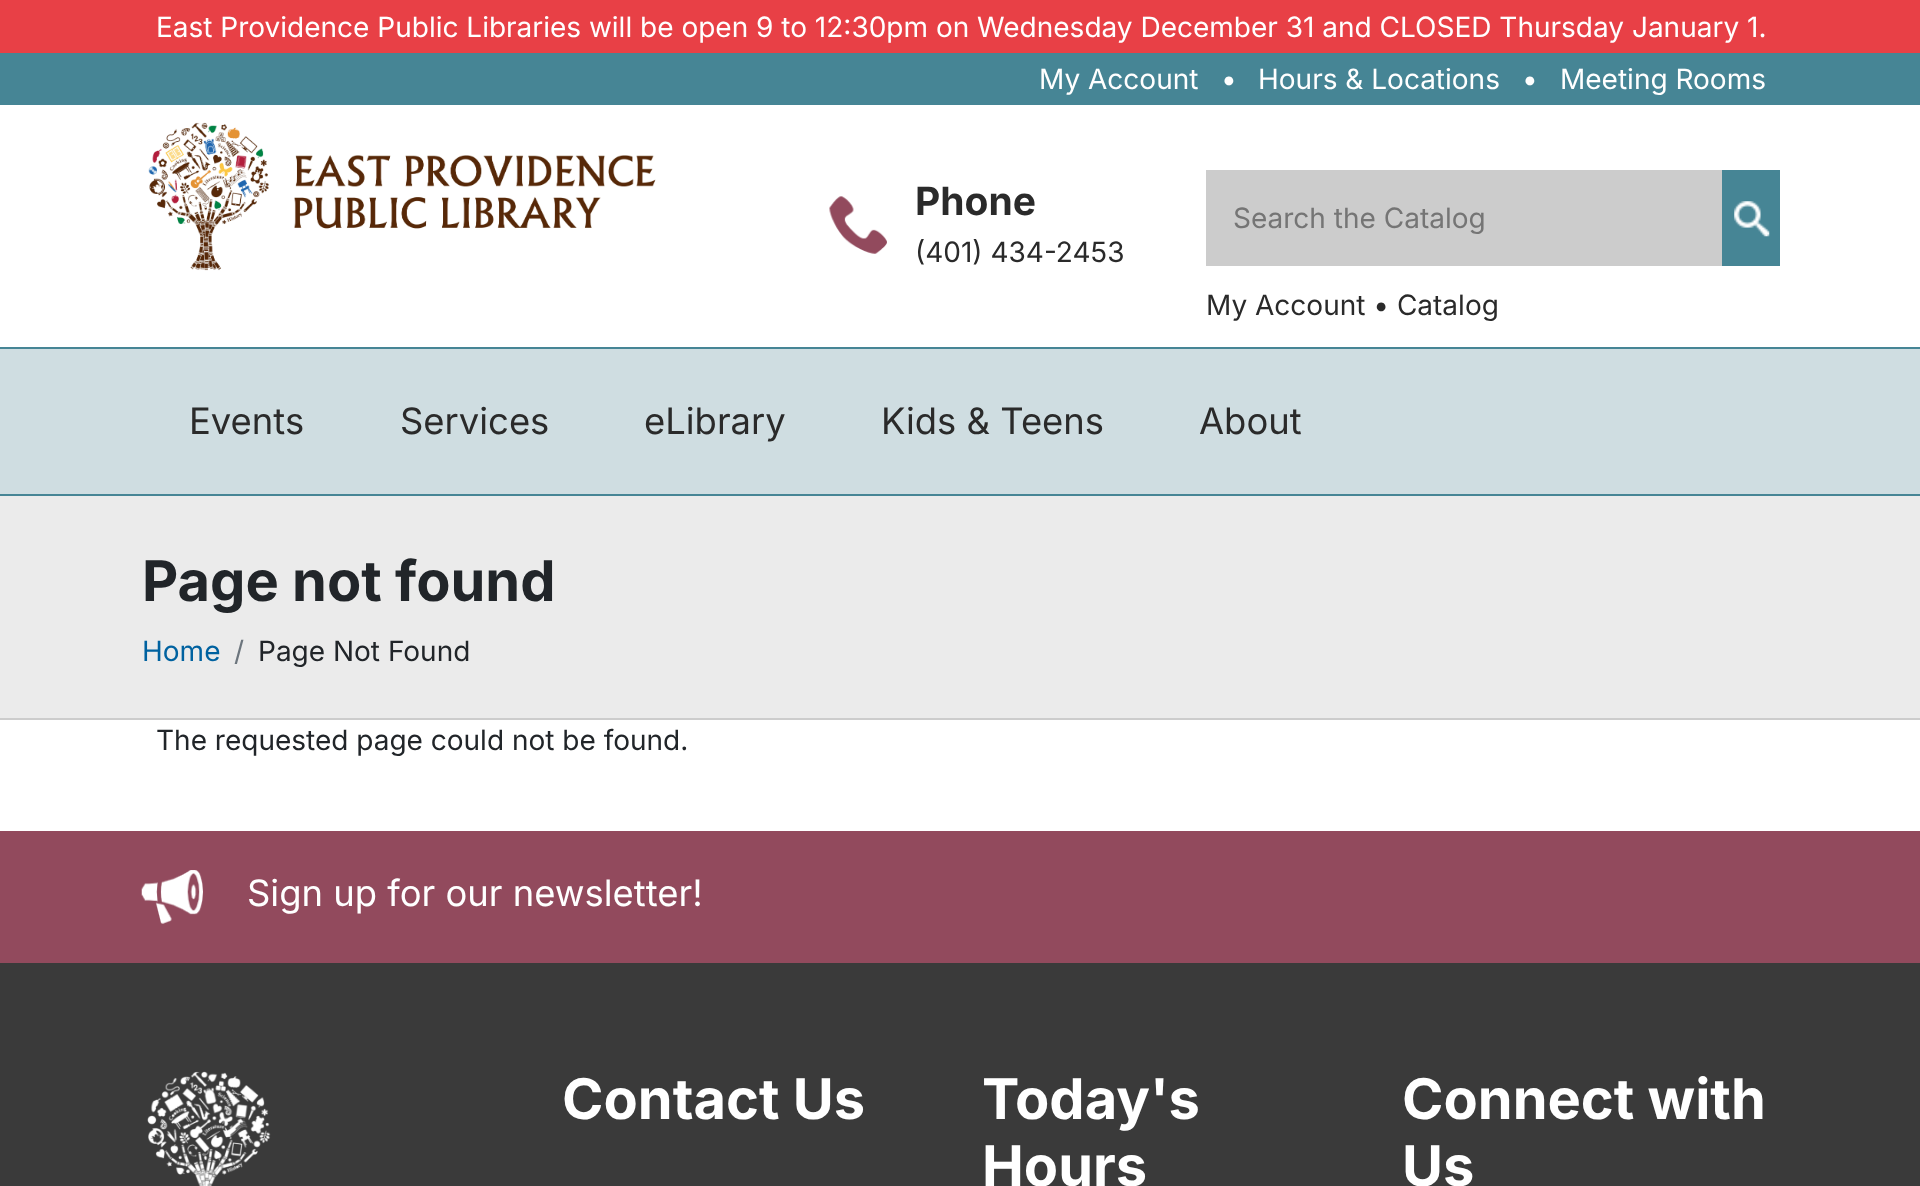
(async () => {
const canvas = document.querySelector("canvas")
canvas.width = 1920
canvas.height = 1186
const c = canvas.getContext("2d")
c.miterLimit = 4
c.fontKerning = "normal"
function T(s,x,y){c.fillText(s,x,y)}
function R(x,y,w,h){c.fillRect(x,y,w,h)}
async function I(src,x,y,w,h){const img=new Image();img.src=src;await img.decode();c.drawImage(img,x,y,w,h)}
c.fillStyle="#fff"
R(0,0,1920,1186)
c.fillStyle="#e84046"
R(0,0,1920,53)
c.font="28px Inter"
c.fillStyle="#fff"
T("East Providence Public Libraries will be open 9 to 12:30pm on Wednesday December 31 and CLOSED Thursday January 1.",156,37)
c.fillStyle="#468595"
R(0,53,1920,52)
c.fillStyle="#fff"
T("My Account",1039,89)
T("•",1221,89)
T("Hours & Locations",1258,89)
T("•",1522,89)
T("Meeting Rooms",1560,89)
await I("1.png",148,122,508,149)
await I("2.png",829,196,58,58)
c.font="bold 39px Inter"
c.fillStyle="#2a2a2a"
T("Phone",915,215)
c.font="28px Inter"
T("(401) 434-2453",915,262)
c.fillStyle="#ccc"
R(1206,170,516,96)
c.fillStyle="#757575"
T("Search the Catalog",1233,228)
c.fillStyle="#468595"
R(1722,170,58,96)
await I("3.png",1734,201,36,36)
c.fillStyle="#2a2a2a"
T("My Account • Catalog",1206,315)
c.fillStyle="#cfdde1"
R(0,349,1920,145)
c.fillStyle="#468595"
R(0,347,1920,2)
R(0,494,1920,2)
c.font="36.4px Inter"
c.fillStyle="#2a2a2a"
T("Events",189,434)
T("Services",400,434)
T("eLibrary",644,434)
T("Kids & Teens",881,434)
T("About",1199,434)
c.fillStyle="#ebebeb"
R(0,496,1920,222)
c.fillStyle="#ccc"
R(0,718,1920,2)
c.font="bold 56px Inter"
c.fillStyle="#212529"
T("Page not found",142,601)
c.font="28px Inter"
c.fillStyle="#0062a0"
T("Home",142,661)
c.fillStyle="#6c757d"
T("/",234,661)
c.fillStyle="#212529"
T("Page Not Found",258,661)
T("The requested page could not be found.",156,750)
c.fillStyle="#924a5d"
R(0,831,1920,132)
await I("4.png",141,870,62,54)
c.font="36.4px Inter"
c.fillStyle="#fff"
T("Sign up for our newsletter!",247,906)
c.fillStyle="#3a3a3a"
R(0,963,1920,223)
await I("5.png",147,1071,124,115)
c.font="bold 56px Inter"
c.fillStyle="#fff"
T("Contact Us",562,1119)
T("Today's",982,1119)
T("Hours",982,1186)
T("Connect with",1402,1119)
T("Us",1402,1186)
})()
